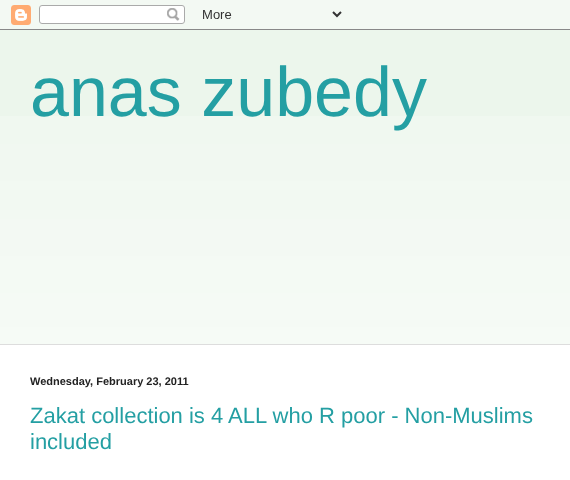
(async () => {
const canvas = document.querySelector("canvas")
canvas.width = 570
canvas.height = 480
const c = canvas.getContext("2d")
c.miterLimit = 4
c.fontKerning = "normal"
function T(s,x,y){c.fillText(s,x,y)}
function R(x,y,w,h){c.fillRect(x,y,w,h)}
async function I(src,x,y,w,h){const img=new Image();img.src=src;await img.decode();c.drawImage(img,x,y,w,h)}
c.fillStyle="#ecf6ec"
R(0,0,570,480)
await I("1.png",0,0,570,30)
await I("2.png",0,116,570,228)
c.font="70px Liberation Sans"
c.fillStyle="#249fa3"
T("anas zubedy",30,116)
c.fillStyle="#fff"
R(0,345,570,135)
c.fillStyle="#ddd"
R(0,344,570,1)
c.font="bold 11px Liberation Sans"
c.fillStyle="#222"
T("Wednesday, February 23, 2011",30,385)
c.font="22px Liberation Sans"
c.fillStyle="#249fa3"
T("Zakat collection is 4 ALL who R poor - Non-Muslims",30,423)
T("included",30,449)
})()
